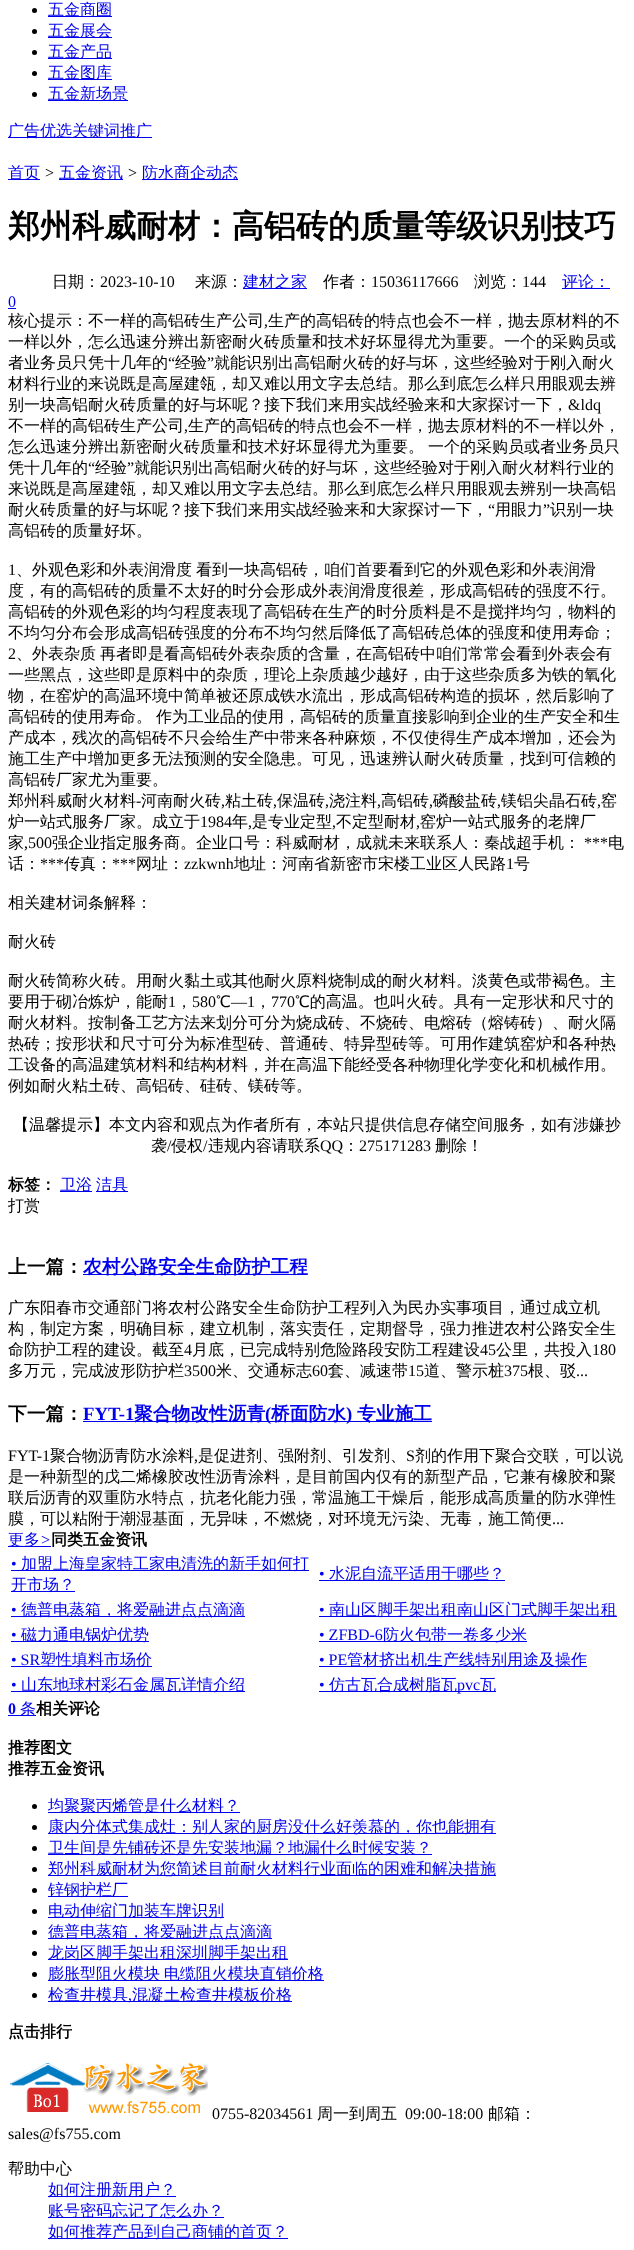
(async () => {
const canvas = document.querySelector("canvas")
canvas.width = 634
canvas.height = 2250
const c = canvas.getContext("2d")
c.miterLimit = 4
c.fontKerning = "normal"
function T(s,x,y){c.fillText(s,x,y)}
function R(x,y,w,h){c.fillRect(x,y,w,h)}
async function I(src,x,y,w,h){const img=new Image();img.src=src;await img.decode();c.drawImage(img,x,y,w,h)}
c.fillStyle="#fff"
R(0,0,634,2250)
c.fillStyle="#000"
c.beginPath()
c.arc(34.5,10.5,2.5,0,7)
c.fill()
c.fillStyle="#00e"
R(48,16,64,1)
c.font="500 16px WenQuanYi Zen Hei"
T("五金商圈",48,15)
c.fillStyle="#000"
c.beginPath()
c.arc(34.5,31.5,2.5,0,7)
c.fill()
c.fillStyle="#00e"
R(48,37,64,1)
T("五金展会",48,36)
c.fillStyle="#000"
c.beginPath()
c.arc(34.5,52.5,2.5,0,7)
c.fill()
c.fillStyle="#00e"
R(48,58,64,1)
T("五金产品",48,57)
c.fillStyle="#000"
c.beginPath()
c.arc(34.5,73.5,2.5,0,7)
c.fill()
c.fillStyle="#00e"
R(48,79,64,1)
T("五金图库",48,78)
c.fillStyle="#000"
c.beginPath()
c.arc(34.5,94.5,2.5,0,7)
c.fill()
c.fillStyle="#00e"
R(48,100,80,1)
T("五金新场景",48,99)
R(8,137,144,1)
T("广告优选关键词推广",8,136)
R(8,179,32,1)
T("首页",8,178)
c.font="italic 16px Liberation Serif"
c.fillStyle="#000"
T(">",44,178)
c.fillStyle="#00e"
R(59,179,64,1)
c.font="500 16px WenQuanYi Zen Hei"
T("五金资讯",59,178)
c.font="italic 16px Liberation Serif"
c.fillStyle="#000"
T(">",127,178)
c.fillStyle="#00e"
R(142,179,96,1)
c.font="500 16px WenQuanYi Zen Hei"
T("防水商企动态",142,178)
c.font="bold 32px WenQuanYi Zen Hei"
c.fillStyle="#000"
T("郑州科威耐材：高铝砖的质量等级识别技巧",8,237)
c.font="500 16px WenQuanYi Zen Hei"
T("日期：",52,287)
c.font="16px Liberation Serif"
T("2023-10-10",100,287)
c.font="500 16px WenQuanYi Zen Hei"
T("来源：",195,287)
c.fillStyle="#00e"
R(243,288,64,1)
T("建材之家",243,287)
c.fillStyle="#000"
T("作者：",323,287)
c.font="16px Liberation Serif"
T("15036117666",371,287)
c.font="500 16px WenQuanYi Zen Hei"
T("浏览：",474,287)
c.font="16px Liberation Serif"
T("144",522,287)
c.fillStyle="#00e"
R(562,288,48,1)
c.font="500 16px WenQuanYi Zen Hei"
T("评论：",562,287)
c.font="16px Liberation Serif"
T("0",8,307)
R(8,308,8,1)
c.font="500 16px WenQuanYi Zen Hei"
c.fillStyle="#000"
T("核心提示：不一样的高铝砖生产公司",8,326)
c.font="16px Liberation Serif"
T(",",264,326)
c.font="500 16px WenQuanYi Zen Hei"
T("生产的高铝砖的特点也会不一样，抛去原材料的不",268,326)
T("一样以外，怎么迅速分辨出新密耐火砖质量和技术好坏显得尤为重要。一个的采购员或",8,347)
T("者业务员只凭十几年的",8,368)
c.font="16px Liberation Serif"
T("“",168,368)
c.font="500 16px WenQuanYi Zen Hei"
T("经验",175,368)
c.font="16px Liberation Serif"
T("”",207,368)
c.font="500 16px WenQuanYi Zen Hei"
T("就能识别出高铝耐火砖的好与坏，这些经验对于刚入耐火",214,368)
T("材料行业的来说既是高屋建瓴，却又难以用文字去总结。那么到底怎么样只用眼观去辨",8,389)
T("别一块高铝耐火砖质量的好与坏呢？接下我们来用实战经验来和大家探讨一下，",8,410)
c.font="16px Liberation Serif"
T("&ldq",568,410)
c.font="500 16px WenQuanYi Zen Hei"
T("不一样的高铝砖生产公司",8,431)
c.font="16px Liberation Serif"
T(",",184,431)
c.font="500 16px WenQuanYi Zen Hei"
T("生产的高铝砖的特点也会不一样，抛去原材料的不一样以外，",188,431)
T("怎么迅速分辨出新密耐火砖质量和技术好坏显得尤为重要。",8,452)
T("一个的采购员或者业务员只",428,452)
T("凭十几年的",8,473)
c.font="16px Liberation Serif"
T("“",88,473)
c.font="500 16px WenQuanYi Zen Hei"
T("经验",95,473)
c.font="16px Liberation Serif"
T("”",127,473)
c.font="500 16px WenQuanYi Zen Hei"
T("就能识别出高铝耐火砖的好与坏，这些经验对于刚入耐火材料行业的",134,473)
T("来说既是高屋建瓴，却又难以用文字去总结。那么到底怎么样只用眼观去辨别一块高铝",8,494)
T("耐火砖质量的好与坏呢？接下我们来用实战经验来和大家探讨一下，",8,515)
c.font="16px Liberation Serif"
T("“",488,515)
c.font="500 16px WenQuanYi Zen Hei"
T("用眼力",495,515)
c.font="16px Liberation Serif"
T("”",543,515)
c.font="500 16px WenQuanYi Zen Hei"
T("识别一块",550,515)
T("高铝砖的质量好坏。",8,536)
c.font="16px Liberation Serif"
T("1",8,575)
c.font="500 16px WenQuanYi Zen Hei"
T("、外观色彩和外表润滑度",16,575)
T("看到一块高铝砖，咱们首要看到它的外观色彩和外表润滑",196,575)
T("度，有的高铝砖的质量不太好的时分会形成外表润滑度很差，形成高铝砖的强度不行。",8,596)
T("高铝砖的外观色彩的均匀程度表现了高铝砖在生产的时分质料是不是搅拌均匀，物料的",8,617)
T("不均匀分布会形成高铝砖强度的分布不均匀然后降低了高铝砖总体的强度和使用寿命；",8,638)
c.font="16px Liberation Serif"
T("2",8,659)
c.font="500 16px WenQuanYi Zen Hei"
T("、外表杂质",16,659)
T("再者即是看高铝砖外表杂质的含量，在高铝砖中咱们常常会看到外表会有",100,659)
T("一些黑点，这些即是原料中的杂质，理论上杂质越少越好，由于这些杂质多为铁的氧化",8,680)
T("物，在窑炉的高温环境中简单被还原成铁水流出，形成高铝砖构造的损坏，然后影响了",8,701)
T("高铝砖的使用寿命。",8,722)
T("作为工业品的使用，高铝砖的质量直接影响到企业的生产安全和生",156,722)
T("产成本，残次的高铝砖不只会给生产中带来各种麻烦，不仅使得生产成本增加，还会为",8,743)
T("施工生产中增加更多无法预测的安全隐患。可见，迅速辨认耐火砖质量，找到可信赖的",8,764)
T("高铝砖厂家尤为重要。",8,785)
T("郑州科威耐火材料",8,806)
c.font="16px Liberation Serif"
T("-",136,806)
c.font="500 16px WenQuanYi Zen Hei"
T("河南耐火砖",141,806)
T("粘土砖",225,806)
T("保温砖",277,806)
T("浇注料",329,806)
T("高铝砖",381,806)
T("磷酸盐砖",433,806)
T("镁铝尖晶石砖",501,806)
T("窑",601,806)
c.font="16px Liberation Serif"
T(",",221,806)
T(",",273,806)
T(",",325,806)
T(",",377,806)
T(",",429,806)
T(",",497,806)
T(",",597,806)
c.font="500 16px WenQuanYi Zen Hei"
T("炉一站式服务厂家。成立于",8,827)
c.font="16px Liberation Serif"
T("1984",200,827)
c.font="500 16px WenQuanYi Zen Hei"
T("年",232,827)
c.font="16px Liberation Serif"
T(",",248,827)
c.font="500 16px WenQuanYi Zen Hei"
T("是专业定型",252,827)
c.font="16px Liberation Serif"
T(",",332,827)
c.font="500 16px WenQuanYi Zen Hei"
T("不定型耐材",336,827)
c.font="16px Liberation Serif"
T(",",416,827)
c.font="500 16px WenQuanYi Zen Hei"
T("窑炉一站式服务的老牌厂",420,827)
T("家",8,848)
c.font="16px Liberation Serif"
T(",500",24,848)
c.font="500 16px WenQuanYi Zen Hei"
T("强企业指定服务商。企业口号：科威耐材，成就未来联系人：秦战超手机：",52,848)
c.font="16px Liberation Serif"
T("***",584,848)
c.font="500 16px WenQuanYi Zen Hei"
T("电",608,848)
T("话：",8,869)
c.font="16px Liberation Serif"
T("***",40,869)
c.font="500 16px WenQuanYi Zen Hei"
T("传真：",64,869)
c.font="16px Liberation Serif"
T("***",112,869)
c.font="500 16px WenQuanYi Zen Hei"
T("网址：",136,869)
c.font="16px Liberation Serif"
T("zzkwnh",184,869)
c.font="500 16px WenQuanYi Zen Hei"
T("地址：河南省新密市宋楼工业区人民路",234,869)
c.font="16px Liberation Serif"
T("1",506,869)
c.font="500 16px WenQuanYi Zen Hei"
T("号",514,869)
T("相关建材词条解释：",8,908)
T("耐火砖",8,947)
T("耐火砖简称火砖。用耐火黏土或其他耐火原料烧制成的耐火材料。淡黄色或带褐色。主",8,986)
T("要用于砌冶炼炉，能耐",8,1007)
c.font="16px Liberation Serif"
T("1",168,1007)
c.font="500 16px WenQuanYi Zen Hei"
T("，",176,1007)
c.font="16px Liberation Serif"
T("580",192,1007)
c.font="500 16px WenQuanYi Zen Hei"
T("℃",216,1007)
c.font="16px Liberation Serif"
T("—1",231,1007)
c.font="500 16px WenQuanYi Zen Hei"
T("，",255,1007)
c.font="16px Liberation Serif"
T("770",271,1007)
c.font="500 16px WenQuanYi Zen Hei"
T("℃的高温。也叫火砖。具有一定形状和尺寸的",295,1007)
T("耐火材料。按制备工艺方法来划分可分为烧成砖、不烧砖、电熔砖（熔铸砖）、耐火隔",8,1028)
T("热砖；按形状和尺寸可分为标准型砖、普通砖、特异型砖等。可用作建筑窑炉和各种热",8,1049)
T("工设备的高温建筑材料和结构材料，并在高温下能经受各种物理化学变化和机械作用。",8,1070)
T("例如耐火粘土砖、高铝砖、硅砖、镁砖等。",8,1091)
T("【温馨提示】本文内容和观点为作者所有，本站只提供信息存储空间服务，如有涉嫌抄",13,1130)
T("袭",151,1151)
c.font="16px Liberation Serif"
T("/",167,1151)
c.font="500 16px WenQuanYi Zen Hei"
T("侵权",171,1151)
c.font="16px Liberation Serif"
T("/",203,1151)
c.font="500 16px WenQuanYi Zen Hei"
T("违规内容请联系",208,1151)
c.font="16px Liberation Serif"
T("QQ",320,1151)
c.font="500 16px WenQuanYi Zen Hei"
T("：",343,1151)
c.font="16px Liberation Serif"
T("275171283",359,1151)
c.font="500 16px WenQuanYi Zen Hei"
T("删除！",435,1151)
c.font="bold 16px WenQuanYi Zen Hei"
T("标签：",8,1190)
c.fillStyle="#00e"
R(60,1191,32,1)
c.font="500 16px WenQuanYi Zen Hei"
T("卫浴",60,1190)
R(96,1191,32,1)
T("洁具",96,1190)
c.fillStyle="#000"
T("打赏",8,1211)
c.font="bold 18.75px WenQuanYi Zen Hei"
T("上一篇：",8,1273)
c.fillStyle="#00e"
R(83,1274,224,1)
T("农村公路安全生命防护工程",83,1273)
c.font="500 16px WenQuanYi Zen Hei"
c.fillStyle="#000"
T("广东阳春市交通部门将农村公路安全生命防护工程列入为民办实事项目，通过成立机",8,1313)
T("构，制定方案，明确目标，建立机制，落实责任，定期督导，强力推进农村公路安全生",8,1334)
T("命防护工程的建设。截至",8,1355)
c.font="16px Liberation Serif"
T("4",184,1355)
c.font="500 16px WenQuanYi Zen Hei"
T("月底，已完成特别危险路段安防工程建设",192,1355)
c.font="16px Liberation Serif"
T("45",480,1355)
c.font="500 16px WenQuanYi Zen Hei"
T("公里，共投入",496,1355)
c.font="16px Liberation Serif"
T("180",592,1355)
c.font="500 16px WenQuanYi Zen Hei"
T("多万元，完成波形防护栏",8,1376)
c.font="16px Liberation Serif"
T("3500",184,1376)
c.font="500 16px WenQuanYi Zen Hei"
T("米、交通标志",216,1376)
c.font="16px Liberation Serif"
T("60",312,1376)
c.font="500 16px WenQuanYi Zen Hei"
T("套、减速带",328,1376)
c.font="16px Liberation Serif"
T("15",408,1376)
c.font="500 16px WenQuanYi Zen Hei"
T("道、警示桩",424,1376)
c.font="16px Liberation Serif"
T("375",504,1376)
c.font="500 16px WenQuanYi Zen Hei"
T("根、驳",528,1376)
c.font="16px Liberation Serif"
T("...",576,1376)
c.font="bold 18.75px WenQuanYi Zen Hei"
T("下一篇：",8,1420)
c.font="bold 18.75px Liberation Serif"
c.fillStyle="#00e"
T("FYT-1",83,1420)
R(83,1421,349,1)
c.font="bold 18.75px WenQuanYi Zen Hei"
T("聚合物改性沥青",134,1420)
c.font="bold 18.75px Liberation Serif"
T("(",265,1420)
c.font="bold 18.75px WenQuanYi Zen Hei"
T("桥面防水",271,1420)
c.font="bold 18.75px Liberation Serif"
T(")",346,1420)
c.font="bold 18.75px WenQuanYi Zen Hei"
T("专业施工",357,1420)
c.font="16px Liberation Serif"
c.fillStyle="#000"
T("FYT-1",8,1461)
c.font="500 16px WenQuanYi Zen Hei"
T("聚合物沥青防水涂料",50,1461)
c.font="16px Liberation Serif"
T(",",194,1461)
c.font="500 16px WenQuanYi Zen Hei"
T("是促进剂、强附剂、引发剂、",198,1461)
c.font="16px Liberation Serif"
T("S",406,1461)
c.font="500 16px WenQuanYi Zen Hei"
T("剂的作用下聚合交联，可以说",415,1461)
T("是一种新型的戊二烯橡胶改性沥青涂料，是目前国内仅有的新型产品，它兼有橡胶和聚",8,1482)
T("联后沥青的双重防水特点，抗老化能力强，常温施工干燥后，能形成高质量的防水弹性",8,1503)
T("膜，可以粘附于潮湿基面，无异味，不燃烧，对环境无污染、无毒，施工简便",8,1524)
c.font="16px Liberation Serif"
T("...",552,1524)
c.fillStyle="#00e"
R(8,1546,43,1)
c.font="500 16px WenQuanYi Zen Hei"
T("更多",8,1545)
c.font="italic 16px Liberation Serif"
T(">",40,1545)
c.font="bold 16px WenQuanYi Zen Hei"
c.fillStyle="#000"
T("同类五金资讯",51,1545)
c.font="16px Liberation Serif"
c.fillStyle="#00e"
T("•",11,1569)
R(11,1570,298,1)
c.font="500 16px WenQuanYi Zen Hei"
T("加盟上海皇家特工家电清洗的新手如何打",21,1569)
R(11,1591,64,1)
T("开市场？",11,1590)
c.font="16px Liberation Serif"
T("•",319,1579)
R(319,1580,186,1)
c.font="500 16px WenQuanYi Zen Hei"
T("水泥自流平适用于哪些？",329,1579)
c.font="16px Liberation Serif"
T("•",11,1615)
R(11,1616,234,1)
c.font="500 16px WenQuanYi Zen Hei"
T("德普电蒸箱，将爱融进点点滴滴",21,1615)
c.font="16px Liberation Serif"
T("•",319,1615)
R(319,1616,298,1)
c.font="500 16px WenQuanYi Zen Hei"
T("南山区脚手架出租南山区门式脚手架出租",329,1615)
c.font="16px Liberation Serif"
T("•",11,1640)
R(11,1641,138,1)
c.font="500 16px WenQuanYi Zen Hei"
T("磁力通电锅炉优势",21,1640)
c.font="16px Liberation Serif"
T("• ZFBD-6",319,1640)
R(319,1641,208,1)
c.font="500 16px WenQuanYi Zen Hei"
T("防火包带一卷多少米",383,1640)
c.font="16px Liberation Serif"
T("• SR",11,1665)
R(11,1666,141,1)
c.font="500 16px WenQuanYi Zen Hei"
T("塑性填料市场价",40,1665)
c.font="16px Liberation Serif"
T("• PE",319,1665)
R(319,1666,268,1)
c.font="500 16px WenQuanYi Zen Hei"
T("管材挤出机生产线特别用途及操作",347,1665)
c.font="16px Liberation Serif"
T("•",11,1690)
R(11,1691,234,1)
c.font="500 16px WenQuanYi Zen Hei"
T("山东地球村彩石金属瓦详情介绍",21,1690)
c.font="16px Liberation Serif"
T("•",319,1690)
R(319,1691,177,1)
c.font="500 16px WenQuanYi Zen Hei"
T("仿古瓦合成树脂瓦",329,1690)
c.font="16px Liberation Serif"
T("pvc",457,1690)
c.font="500 16px WenQuanYi Zen Hei"
T("瓦",480,1690)
c.font="bold 16px Liberation Serif"
T("0",8,1714)
R(8,1715,28,1)
c.font="500 16px WenQuanYi Zen Hei"
T("条",20,1714)
c.font="bold 16px WenQuanYi Zen Hei"
c.fillStyle="#000"
T("相关评论",36,1714)
T("推荐图文",8,1753)
T("推荐五金资讯",8,1774)
c.beginPath()
c.arc(34.5,1806.5,2.5,0,7)
c.fill()
c.fillStyle="#00e"
R(48,1812,192,1)
c.font="500 16px WenQuanYi Zen Hei"
T("均聚聚丙烯管是什么材料？",48,1811)
c.fillStyle="#000"
c.beginPath()
c.arc(34.5,1827.5,2.5,0,7)
c.fill()
c.fillStyle="#00e"
R(48,1833,448,1)
T("康内分体式集成灶：别人家的厨房没什么好羡慕的，你也能拥有",48,1832)
c.fillStyle="#000"
c.beginPath()
c.arc(34.5,1848.5,2.5,0,7)
c.fill()
c.fillStyle="#00e"
R(48,1854,384,1)
T("卫生间是先铺砖还是先安装地漏？地漏什么时候安装？",48,1853)
c.fillStyle="#000"
c.beginPath()
c.arc(34.5,1869.5,2.5,0,7)
c.fill()
c.fillStyle="#00e"
R(48,1875,448,1)
T("郑州科威耐材为您简述目前耐火材料行业面临的困难和解决措施",48,1874)
c.fillStyle="#000"
c.beginPath()
c.arc(34.5,1890.5,2.5,0,7)
c.fill()
c.fillStyle="#00e"
R(48,1896,80,1)
T("锌钢护栏厂",48,1895)
c.fillStyle="#000"
c.beginPath()
c.arc(34.5,1911.5,2.5,0,7)
c.fill()
c.fillStyle="#00e"
R(48,1917,176,1)
T("电动伸缩门加装车牌识别",48,1916)
c.fillStyle="#000"
c.beginPath()
c.arc(34.5,1932.5,2.5,0,7)
c.fill()
c.fillStyle="#00e"
R(48,1938,224,1)
T("德普电蒸箱，将爱融进点点滴滴",48,1937)
c.fillStyle="#000"
c.beginPath()
c.arc(34.5,1953.5,2.5,0,7)
c.fill()
c.fillStyle="#00e"
R(48,1959,240,1)
T("龙岗区脚手架出租深圳脚手架出租",48,1958)
c.fillStyle="#000"
c.beginPath()
c.arc(34.5,1974.5,2.5,0,7)
c.fill()
c.fillStyle="#00e"
R(48,1980,276,1)
c.wordSpacing="-1px"
T("膨胀型阻火模块 电缆阻火模块直销价格",48,1979)
c.fillStyle="#000"
c.beginPath()
c.arc(34.5,1995.5,2.5,0,7)
c.fill()
c.fillStyle="#00e"
R(48,2001,244,1)
c.wordSpacing="0px"
T("检查井模具",48,2000)
T("混凝土检查井模板价格",132,2000)
c.font="16px Liberation Serif"
T(",",128,2000)
c.font="bold 16px WenQuanYi Zen Hei"
c.fillStyle="#000"
T("点击排行",8,2037)
await I("1.png",10,2063,198,51)
c.font="16px Liberation Serif"
T("0755-82034561",212,2119)
c.font="500 16px WenQuanYi Zen Hei"
T("周一到周五",317,2119)
c.font="16px Liberation Serif"
T("09:00-18:00",405,2119)
c.font="500 16px WenQuanYi Zen Hei"
T("邮箱：",488,2119)
c.font="16px Liberation Serif"
T("sales@fs755.com",8,2139)
c.font="500 16px WenQuanYi Zen Hei"
T("帮助中心",8,2174)
c.fillStyle="#00e"
R(48,2196,128,1)
T("如何注册新用户？",48,2195)
R(48,2217,176,1)
T("账号密码忘记了怎么办？",48,2216)
R(48,2238,240,1)
T("如何推荐产品到自己商铺的首页？",48,2237)
})()
